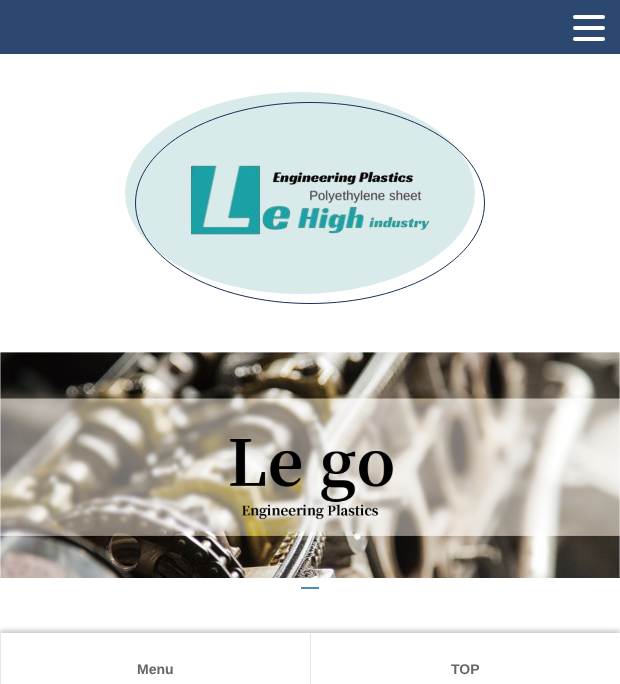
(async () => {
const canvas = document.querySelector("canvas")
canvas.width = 620
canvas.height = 684
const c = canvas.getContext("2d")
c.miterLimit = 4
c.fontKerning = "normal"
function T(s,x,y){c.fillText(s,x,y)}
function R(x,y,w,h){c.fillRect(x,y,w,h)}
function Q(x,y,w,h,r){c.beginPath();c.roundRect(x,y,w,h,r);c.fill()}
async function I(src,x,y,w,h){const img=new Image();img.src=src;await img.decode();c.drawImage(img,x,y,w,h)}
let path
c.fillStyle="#fff"
R(0,0,620,684)
c.fillStyle="#2c4870"
R(0,0,620,54)
c.fillStyle="#fff"
Q(573,15,32,4,2)
Q(573,26,32,4,2)
Q(573,37,32,4,2)
c.fillStyle="#d8eae9"
c.beginPath()
c.ellipse(300,193,175,101,0,0,7)
c.fill()
path = new Path2D("M310 102.5c96.5 0 174.5 45 174.5 100.5c0 55.5-78 100.5-174.5 100.5c-96.5 0-174.5-45-174.5-100.5c0-55.5 78-100.5 174.5-100.5z")
c.strokeStyle="#1c2f5a"
c.stroke(path)
await I("1.png",190,165,240,70)
await I("2.png",0,352,620,226)
c.fillStyle="#4d8cb5"
c.beginPath()
c.rect(300.5,586.5,19,3)
c.fill()
c.strokeStyle="#fff"
c.stroke()
c.fillStyle="#00000033"
c.filter="blur(2px)"
c.beginPath()
c.rect(0,630,620,51)
c.fill()
c.filter="none"
c.fillStyle="#fff"
R(1,633,619,51)
c.fillStyle="#e6e6e6"
R(0,633,1,51)
c.font="bold 14px Liberation Sans"
c.fillStyle="#666"
T("Menu",137,674)
c.fillStyle="#e6e6e6"
R(310,633,1,51)
c.fillStyle="#666"
T("TOP",451,674)
})()
